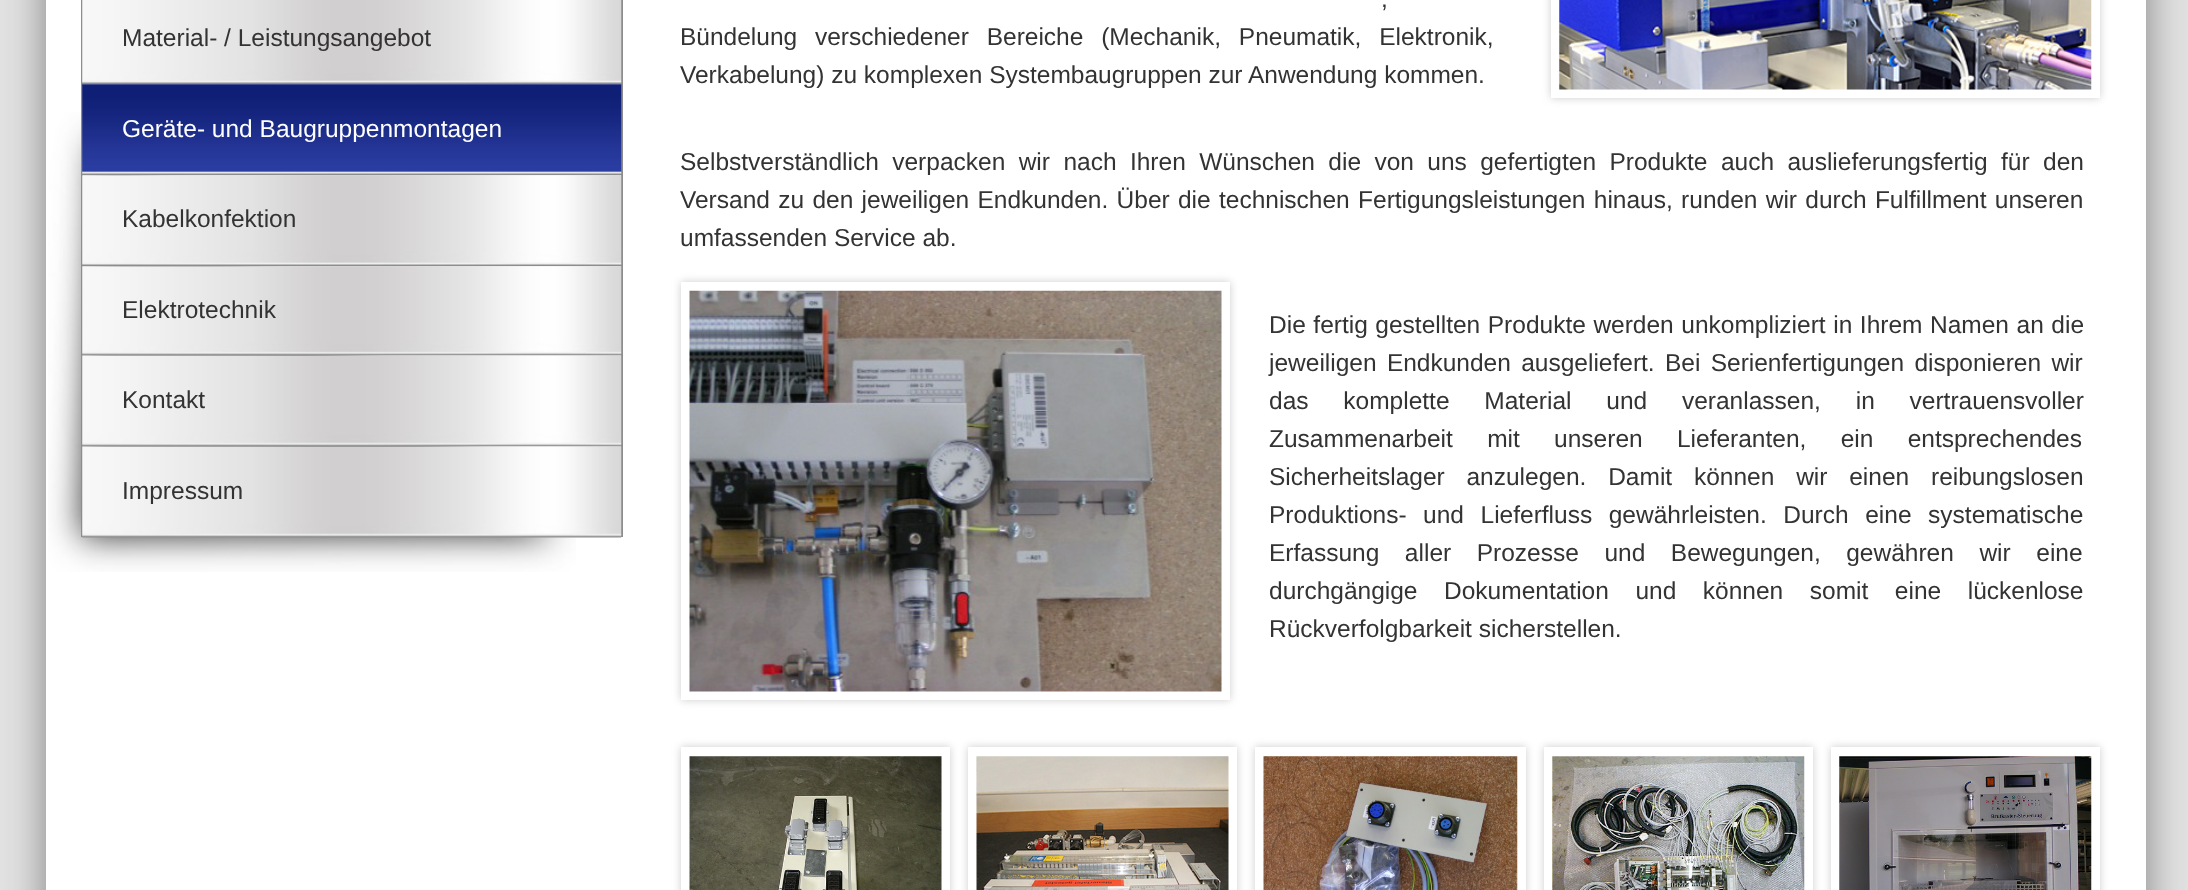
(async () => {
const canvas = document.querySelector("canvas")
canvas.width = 2188
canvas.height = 890
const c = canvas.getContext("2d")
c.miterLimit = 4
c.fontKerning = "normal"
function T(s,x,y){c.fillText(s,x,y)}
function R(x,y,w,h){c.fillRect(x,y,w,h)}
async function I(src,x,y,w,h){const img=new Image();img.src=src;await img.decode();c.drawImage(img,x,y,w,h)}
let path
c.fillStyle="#e2e2e2"
R(0,0,2188,890)
c.fillStyle="#808080"
c.filter="blur(21px)"
c.beginPath()
c.rect(46,-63,2100,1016)
c.fill()
c.filter="none"
c.fillStyle="#fff"
R(46,0,2100,890)
c.fillStyle="#8d8d8d"
R(621,0,2,537)
await I("7.png",48,112,528,460)
R(81,0,2,537)
await I("1.png",82,0,540,85)
c.font="24.5px Liberation Sans"
c.fillStyle="#333"
T("Material- / Leistungsangebot",122,46)
await I("2.png",82,84,540,92)
c.fillStyle="#fff"
T("Geräte- und Baugruppenmontagen",122,137)
await I("3.png",82,175,540,92)
c.fillStyle="#333"
T("Kabelkonfektion",122,227)
await I("4.png",82,266,540,90)
T("Elektrotechnik",122,318)
await I("5.png",82,355,540,92)
T("Kontakt",122,408)
await I("6.png",82,446,540,92)
T("Impressum",122,499)
c.wordSpacing="8px"
T(",",1381,7)
c.wordSpacing="11px"
T("Bündelung verschiedener Bereiche (Mechanik, Pneumatik, Elektronik,",680,45)
c.wordSpacing="0px"
T("Verkabelung) zu komplexen Systembaugruppen zur Anwendung kommen.",680,83)
c.save()
path = new Path2D("M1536 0h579v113h-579zm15-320h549v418h-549z")
c.clip(path,"evenodd")
c.fillStyle="#ccc"
c.filter="blur(4.5px)"
c.beginPath()
c.rect(1551,-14,549,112)
c.fill()
c.filter="none"
c.restore()
await I("8.png",1559,0,533,90)
c.wordSpacing="6.6px"
T("Selbstverständlich verpacken wir nach Ihren Wünschen die von uns gefertigten Produkte auch auslieferungsfertig für den",680,170)
c.wordSpacing="1.5px"
T("Versand zu den jeweiligen Endkunden. Über die technischen Fertigungsleistungen hinaus, runden wir durch Fulfillment unseren",680,208)
c.wordSpacing="0px"
T("umfassenden Service ab.",680,246)
c.save()
path = new Path2D("M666 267h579v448h-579zm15 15h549v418h-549z")
c.clip(path,"evenodd")
c.fillStyle="#ccc"
c.filter="blur(4.5px)"
c.beginPath()
c.rect(681,282,549,418)
c.fill()
c.filter="none"
c.restore()
await I("9.png",689,290,533,402)
c.wordSpacing="0.75px"
T("Die fertig gestellten Produkte werden unkompliziert in Ihrem Namen an die",1269,333)
c.wordSpacing="3.5px"
T("jeweiligen Endkunden ausgeliefert. Bei Serienfertigungen disponieren wir",1269,371)
c.wordSpacing="28px"
T("das komplette Material und veranlassen, in vertrauensvoller",1269,409)
c.wordSpacing="27.5px"
T("Zusammenarbeit mit unseren Lieferanten, ein entsprechendes",1269,447)
c.wordSpacing="15px"
T("Sicherheitslager anzulegen. Damit können wir einen reibungslosen",1269,485)
c.wordSpacing="9.75px"
T("Produktions- und Lieferfluss gewährleisten. Durch eine systematische",1269,523)
c.wordSpacing="18.75px"
T("Erfassung aller Prozesse und Bewegungen, gewähren wir eine",1269,561)
c.wordSpacing="19.75px"
T("durchgängige Dokumentation und können somit eine lückenlose",1269,599)
c.wordSpacing="0px"
T("Rückverfolgbarkeit sicherstellen.",1269,637)
c.save()
path = new Path2D("M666 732h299v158h-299zm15 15h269v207h-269z")
c.clip(path,"evenodd")
c.fillStyle="#ccc"
c.filter="blur(4.5px)"
c.beginPath()
c.rect(681,747,269,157)
c.fill()
c.filter="none"
c.restore()
await I("10.png",689,756,253,134)
c.save()
path = new Path2D("M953 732h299v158h-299zm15 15h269v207h-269z")
c.clip(path,"evenodd")
c.fillStyle="#ccc"
c.filter="blur(4.5px)"
c.beginPath()
c.rect(968,747,269,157)
c.fill()
c.filter="none"
c.restore()
await I("11.png",976,756,253,134)
c.save()
path = new Path2D("M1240 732h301v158h-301zm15 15h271v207h-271z")
c.clip(path,"evenodd")
c.fillStyle="#ccc"
c.filter="blur(4.5px)"
c.beginPath()
c.rect(1255,747,271,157)
c.fill()
c.filter="none"
c.restore()
await I("12.png",1263,756,255,134)
c.save()
path = new Path2D("M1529 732h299v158h-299zm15 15h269v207h-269z")
c.clip(path,"evenodd")
c.fillStyle="#ccc"
c.filter="blur(4.5px)"
c.beginPath()
c.rect(1544,747,269,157)
c.fill()
c.filter="none"
c.restore()
await I("13.png",1552,756,253,134)
c.save()
path = new Path2D("M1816 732h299v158h-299zm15 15h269v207h-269z")
c.clip(path,"evenodd")
c.fillStyle="#ccc"
c.filter="blur(4.5px)"
c.beginPath()
c.rect(1831,747,269,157)
c.fill()
c.filter="none"
c.restore()
await I("14.png",1839,756,253,134)
})()
